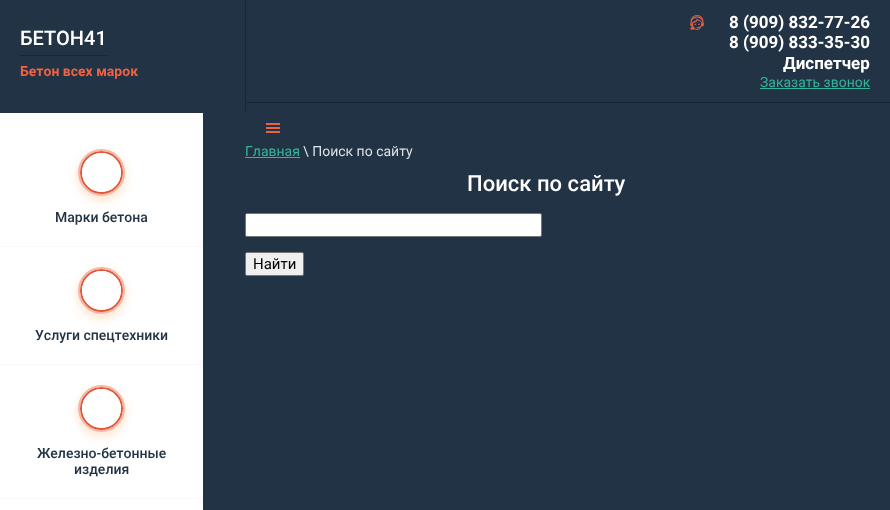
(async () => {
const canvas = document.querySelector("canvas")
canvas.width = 890
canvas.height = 510
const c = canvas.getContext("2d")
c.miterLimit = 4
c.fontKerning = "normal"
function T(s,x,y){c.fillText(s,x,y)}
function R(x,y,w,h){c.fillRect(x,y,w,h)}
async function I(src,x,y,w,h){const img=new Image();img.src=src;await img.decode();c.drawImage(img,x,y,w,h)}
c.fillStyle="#223345"
R(0,0,890,510)
c.fillStyle="#152638"
R(245,0,1,113)
R(20,55,87,1)
c.font="500 20px Roboto"
c.fillStyle="#fff"
T("БЕТОН41",20,45)
c.font="bold 14px Roboto"
c.fillStyle="#ee6244"
T("Бетон всех марок",20,76)
await I("1.png",690,15,14,15)
c.font="bold 17px Roboto"
c.fillStyle="#fff"
T("8 (909) 832-77-26",729,28)
T("8 (909) 833-35-30",729,48)
T("Диспетчер",783,69)
c.font="14px Roboto"
c.fillStyle="#34b49b"
T("Заказать звонок",760,87)
R(760,88,110,1)
c.fillStyle="#152638"
R(246,102,644,1)
await I("2.png",266,123,14,10)
c.fillStyle="#fff"
R(0,113,203,397)
c.fillStyle="#fd861c33"
c.filter="blur(4.5px)"
c.beginPath()
c.roundRect(77,152,49,49,24.5)
c.fill()
c.filter="none"
c.beginPath()
c.arc(101.5,172.5,20.5,0,7)
c.strokeStyle="#e35739"
c.lineWidth=2
c.stroke()
c.beginPath()
c.arc(101.5,172.5,22.5,0,7)
c.strokeStyle="#f4b8ab"
c.stroke()
c.fillStyle="#fff"
c.beginPath()
c.arc(101.5,172.5,19.5,0,7)
c.fill()
c.font="500 14px Roboto"
c.fillStyle="#223345"
T("Марки бетона",55,222)
c.fillStyle="#f9f9f9"
R(0,246,203,1)
c.fillStyle="#fd861c33"
c.filter="blur(4.5px)"
c.beginPath()
c.roundRect(77,270,49,49,24.5)
c.fill()
c.filter="none"
c.beginPath()
c.arc(101.5,290.5,20.5,0,7)
c.strokeStyle="#e35739"
c.stroke()
c.beginPath()
c.arc(101.5,290.5,22.5,0,7)
c.strokeStyle="#f4b8ab"
c.stroke()
c.fillStyle="#fff"
c.beginPath()
c.arc(101.5,290.5,19.5,0,7)
c.fill()
c.fillStyle="#223345"
T("Услуги спецтехники",35,340)
c.fillStyle="#f9f9f9"
R(0,364,203,1)
c.fillStyle="#fd861c33"
c.filter="blur(4.5px)"
c.beginPath()
c.roundRect(77,388,49,49,24.5)
c.fill()
c.filter="none"
c.beginPath()
c.arc(101.5,408.5,20.5,0,7)
c.strokeStyle="#e35739"
c.stroke()
c.beginPath()
c.arc(101.5,408.5,22.5,0,7)
c.strokeStyle="#f4b8ab"
c.stroke()
c.fillStyle="#fff"
c.beginPath()
c.arc(101.5,408.5,19.5,0,7)
c.fill()
c.fillStyle="#223345"
T("Железно-бетонные",37,458)
T("изделия",74,474)
c.fillStyle="#f9f9f9"
R(0,498,203,1)
c.font="14px Roboto"
c.fillStyle="#34b49b"
T("Главная",245,156)
R(245,157,55,1)
c.fillStyle="#dbe0e6"
T("\\ Поиск по сайту",303,156)
c.font="500 22px Roboto"
c.fillStyle="#fff"
T("Поиск по сайту",467,191)
c.beginPath()
c.roundRect(245.5,213.5,296,23,1.5)
c.fill()
c.strokeStyle="#767676"
c.lineWidth=1
c.stroke()
c.fillStyle="#efefef"
c.beginPath()
c.roundRect(245.5,252.5,58,23,1.5)
c.fill()
c.stroke()
c.font="15px Roboto"
c.fillStyle="#000"
T("Найти",253,269)
})()
